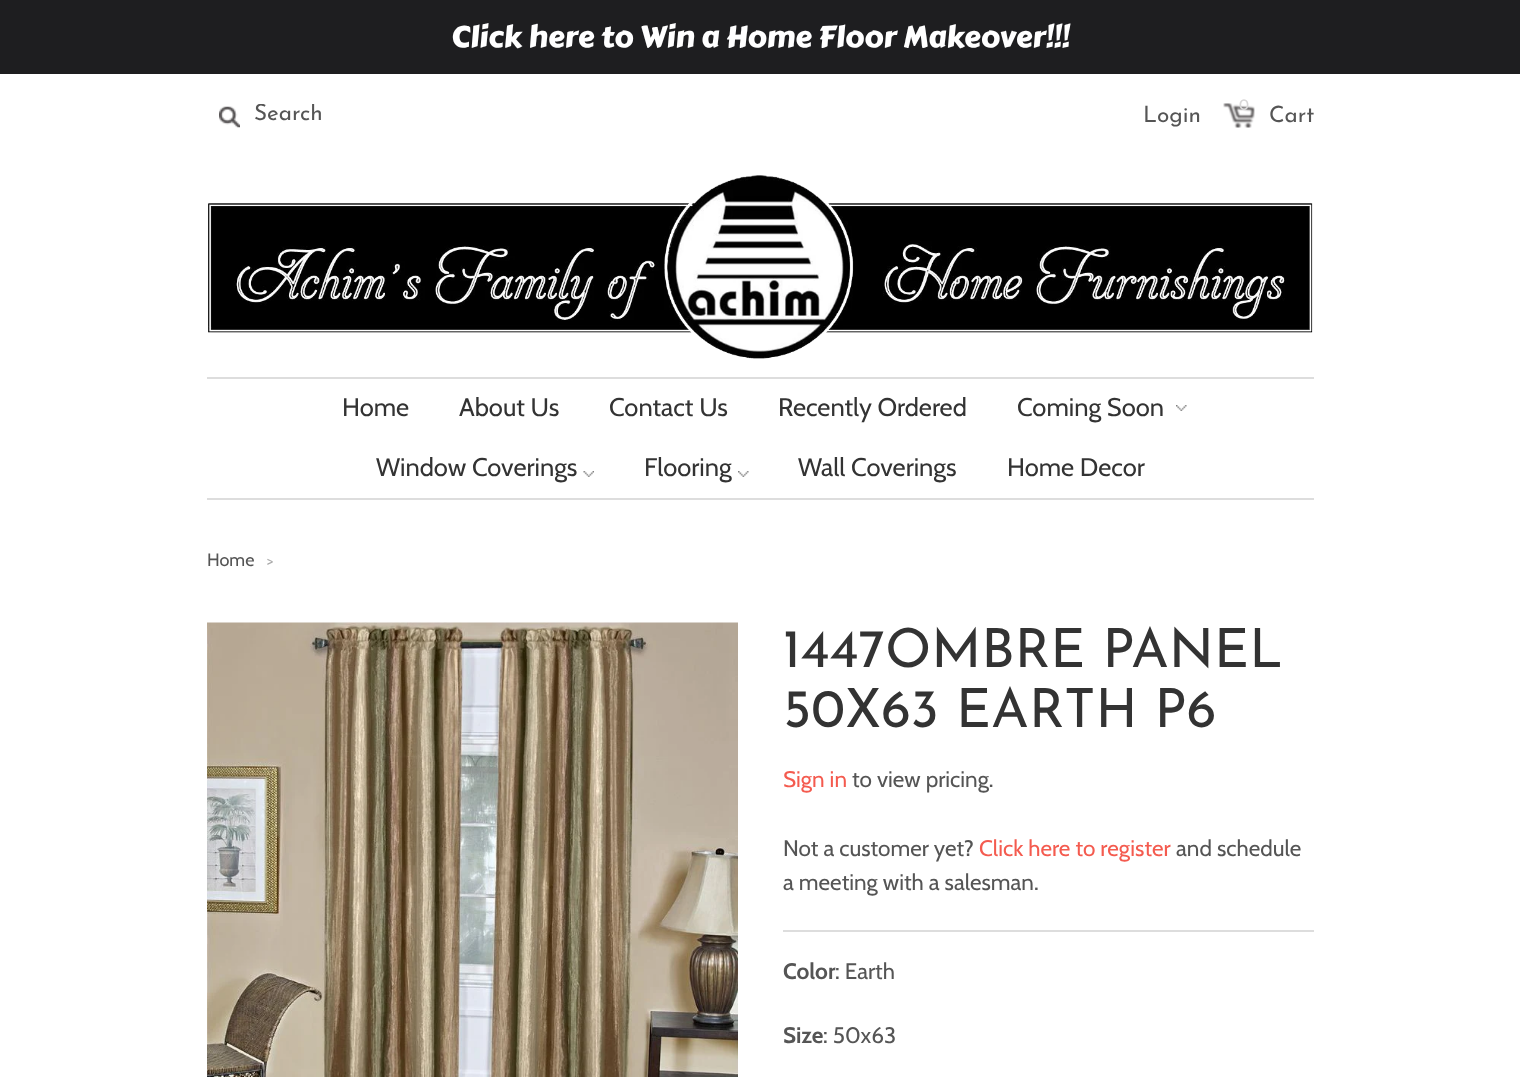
(async () => {
const canvas = document.querySelector("canvas")
canvas.width = 1520
canvas.height = 1077
const c = canvas.getContext("2d")
c.miterLimit = 4
c.fontKerning = "normal"
function T(s,x,y){c.fillText(s,x,y)}
function R(x,y,w,h){c.fillRect(x,y,w,h)}
async function I(src,x,y,w,h){const img=new Image();img.src=src;await img.decode();c.drawImage(img,x,y,w,h)}
c.fillStyle="#fff"
R(0,0,1520,1077)
c.fillStyle="#1e1e20"
R(0,0,1520,74)
c.font="30px Carter One"
c.fillStyle="#fff"
T("Click here to Win a Home Floor Makeover!!!",451,47)
await I("1.png",219,106,21,22)
c.save()
c.beginPath()
c.rect(254,104,127,22)
c.clip()
c.font="22.5px Josefin Sans"
c.fillStyle="#555"
T("Search",254,120)
c.restore()
c.font="22.5px Josefin Sans"
c.fillStyle="#555"
T("Login",1143,122)
await I("2.png",1223,103,32,25)
c.font="16px Josefin Sans"
c.fillStyle="#d8d7d7"
T("0",1239,110)
c.font="22.5px Josefin Sans"
c.fillStyle="#555"
T("Cart",1269,122)
await I("3.png",208,175,1105,184)
c.fillStyle="#ddd"
R(207,377,1107,2)
R(207,498,1107,2)
c.font="25.5px Cabin"
c.fillStyle="#333"
T("Home",342,416)
T("About Us",459,416)
T("Contact Us",609,416)
T("Recently Ordered",778,416)
await I("4.png",1176,405,11,6)
T("Coming Soon",1017,416)
T("Window Coverings",376,476)
await I("5.png",583,471,11,6)
T("Flooring",644,476)
await I("6.png",738,471,11,6)
T("Wall Coverings",798,476)
T("Home Decor",1007,476)
c.font="18px Cabin"
c.fillStyle="#555"
T("Home",207,566)
c.font="15px Cabin"
c.fillStyle="#aaa"
T(">",267,566)
await I("7.png",207,622,531,455)
c.font="54px Josefin Sans"
c.fillStyle="#333"
T("1447OMBRE PANEL",783,667)
T("50X63 EARTH P6",783,727)
c.font="22.5px Cabin"
c.fillStyle="#f45b4f"
T("Sign in",783,787)
c.fillStyle="#555"
T("to view pricing.",852,787)
T("Not a customer yet?",783,856)
c.fillStyle="#f45b4f"
T("Click here to register",979,856)
c.fillStyle="#555"
T("and schedule",1176,856)
T("a meeting with a salesman.",783,890)
c.fillStyle="#ddd"
R(783,930,531,2)
c.font="bold 22.5px Cabin"
c.fillStyle="#555"
T("Color",783,979)
c.font="22.5px Cabin"
T(": Earth",835,979)
c.font="bold 22.5px Cabin"
T("Size",783,1043)
c.font="22.5px Cabin"
T(": 50x63",823,1043)
})()
